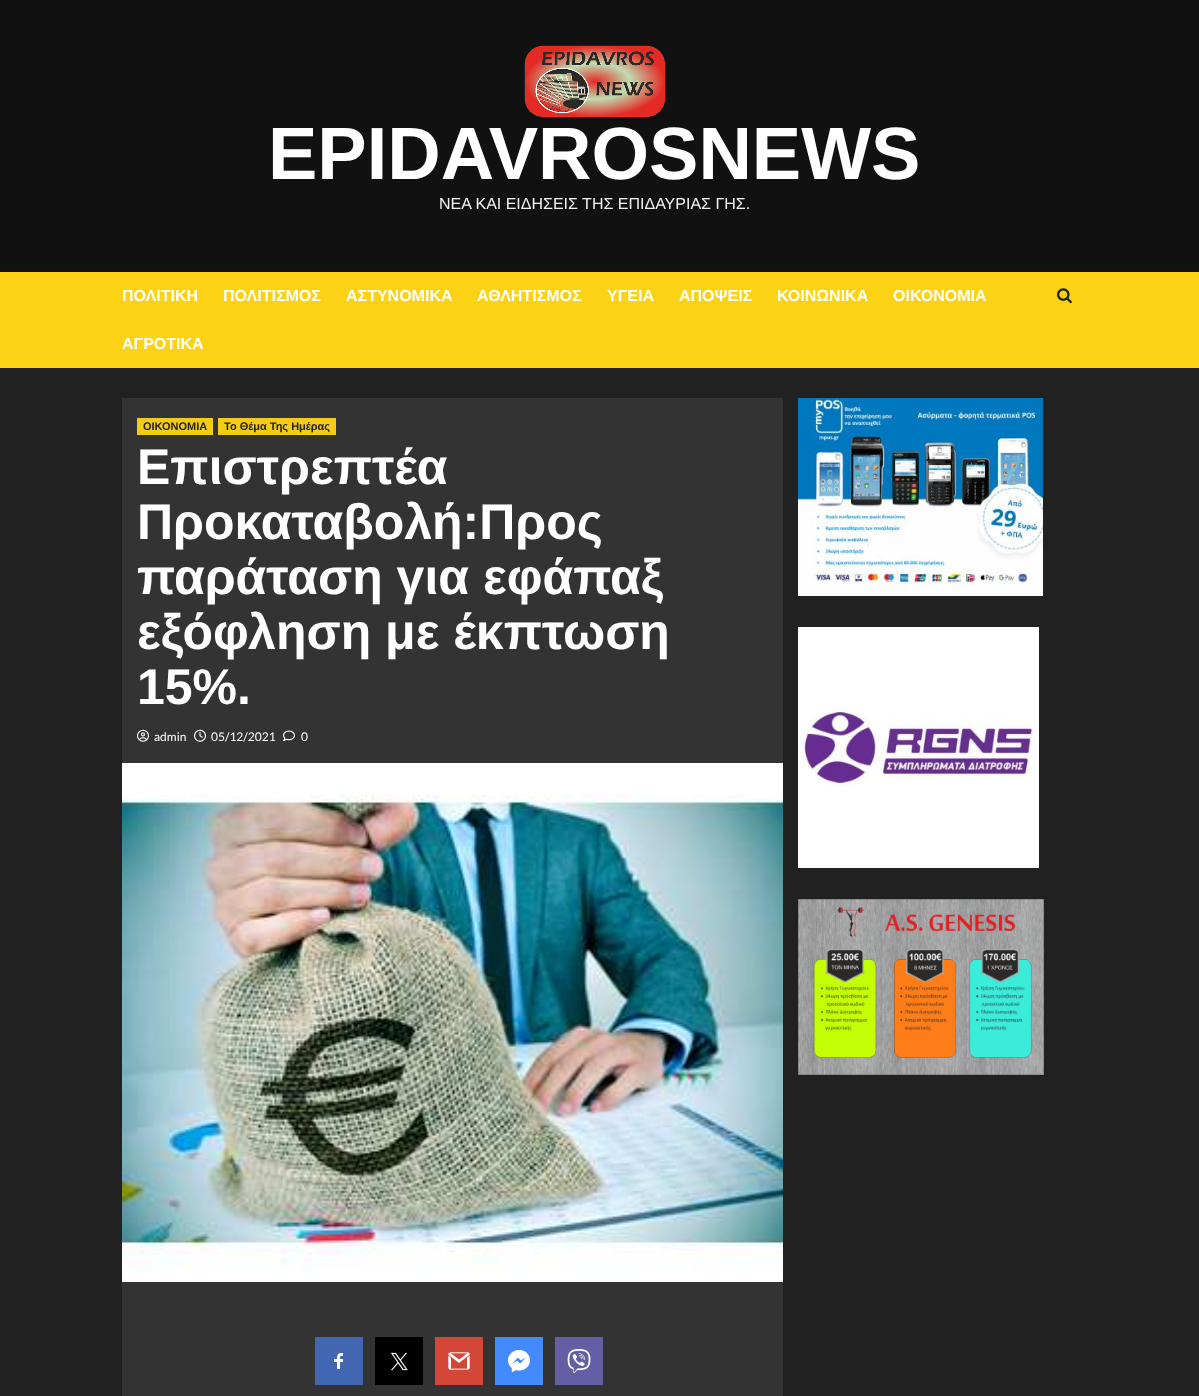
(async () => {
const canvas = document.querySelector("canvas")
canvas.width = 1199
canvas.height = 1396
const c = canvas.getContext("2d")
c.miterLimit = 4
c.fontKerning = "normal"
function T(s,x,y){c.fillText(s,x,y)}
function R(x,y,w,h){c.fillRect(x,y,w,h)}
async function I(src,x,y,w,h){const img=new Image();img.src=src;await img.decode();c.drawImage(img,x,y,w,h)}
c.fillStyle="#212121"
R(0,0,1199,1396)
c.fillStyle="#111"
R(0,0,1199,272)
await I("1.png",524,45,141,72)
c.font="bold 74px Liberation Sans"
c.fillStyle="#fff"
T("EPIDAVROSNEWS",268,179)
c.font="16px Liberation Sans"
c.fillStyle="#f3f3f3"
T("ΝΕΑ ΚΑΙ ΕΙΔΗΣΕΙΣ ΤΗΣ ΕΠΙΔΑΥΡΙΑΣ ΓΗΣ.",439,209)
c.fillStyle="#fcd215"
R(0,272,1199,96)
c.font="bold 16px Liberation Sans"
c.fillStyle="#fff"
T("ΠΟΛΙΤΙΚΗ",122,301)
T("ΠΟΛΙΤΙΣΜΟΣ",223,301)
T("ΑΣΤΥΝΟΜΙΚΑ",346,301)
T("ΑΘΛΗΤΙΣΜΟΣ",477,301)
T("ΥΓΕΙΑ",607,301)
T("ΑΠΟΨΕΙΣ",679,301)
T("ΚΟΙΝΩΝΙΚΑ",777,301)
T("ΟΙΚΟΝΟΜΙΑ",893,301)
T("ΑΓΡΟΤΙΚΑ",122,349)
await I("2.png",1057,288,15,16)
c.fillStyle="#333"
R(122,398,661,998)
c.fillStyle="#f4cc16"
R(137,418,76,17)
c.font="bold 11px Liberation Sans"
c.fillStyle="#222"
T("ΟΙΚΟΝΟΜΙΑ",143,430)
c.fillStyle="#f4cc16"
R(218,418,118,17)
c.fillStyle="#222"
T("Το Θέμα Της Ημέρας",224,430)
c.font="bold 50px Liberation Sans"
c.fillStyle="#fff"
T("Επιστρεπτέα",137,484)
T("Προκαταβολή:Προς",137,539)
T("παράταση για εφάπαξ",137,594)
T("εξόφληση με έκπτωση",137,649)
T("15%.",137,704)
await I("3.png",137,729,12,13)
c.font="12px Lato"
T("admin",154,741)
await I("4.png",194,729,12,13)
T("05/12/2021",211,741)
await I("5.png",283,730,12,11)
T("0",301,741)
await I("6.png",122,763,661,519)
c.fillStyle="#4267b2"
R(315,1337,48,48)
await I("7.png",334,1353,9,16)
c.fillStyle="#000"
R(375,1337,48,48)
await I("8.png",391,1352,17,19)
c.fillStyle="#d44638"
R(435,1337,48,48)
await I("9.png",448,1352,22,18)
c.fillStyle="#448aff"
R(495,1337,48,48)
await I("10.png",508,1350,22,23)
c.fillStyle="#645ea4"
R(555,1337,48,48)
await I("11.png",567,1349,24,24)
await I("12.png",798,398,245,198)
await I("13.png",798,627,241,241)
await I("14.png",798,899,246,176)
})()
